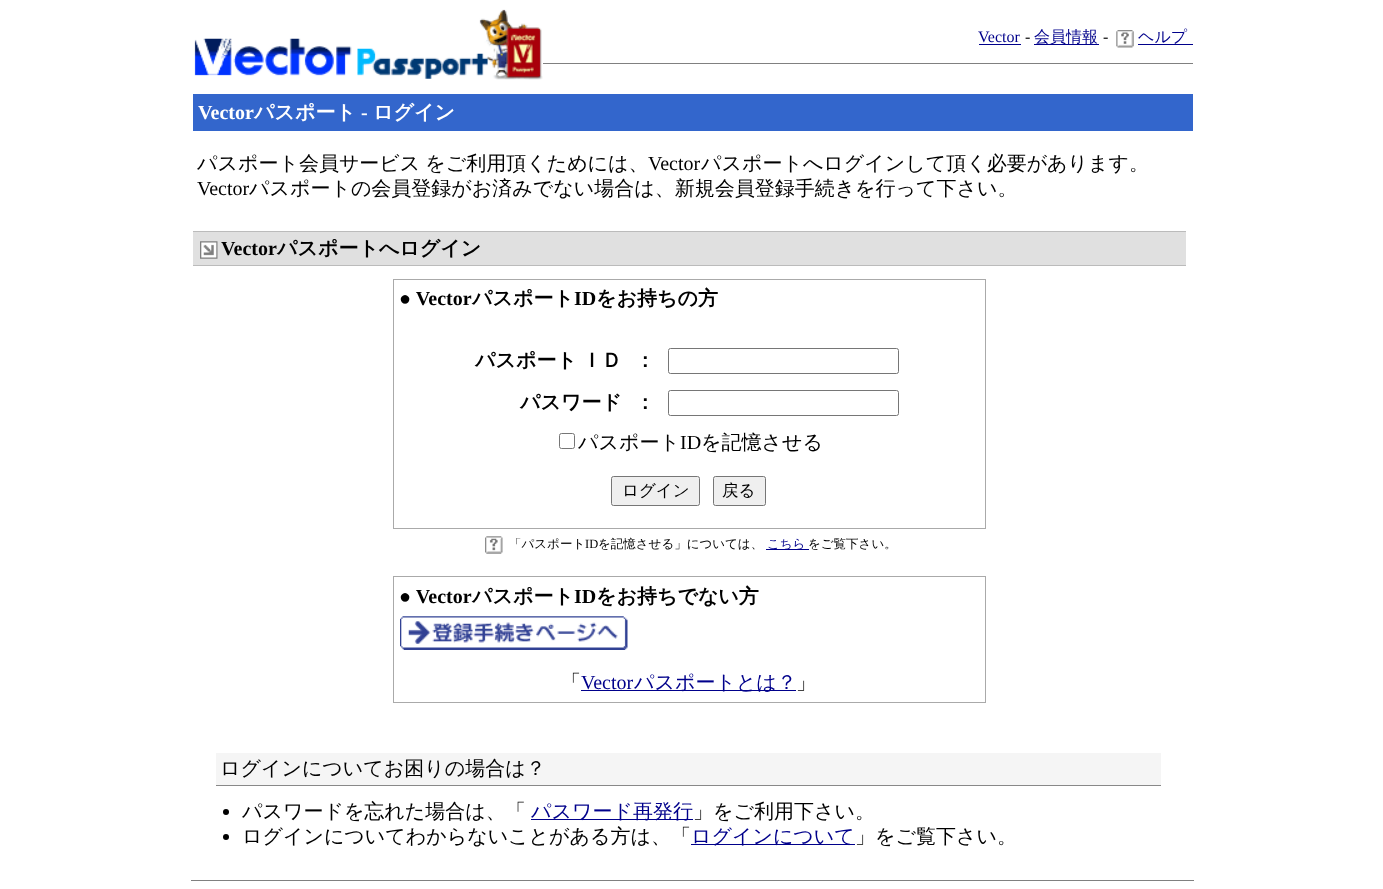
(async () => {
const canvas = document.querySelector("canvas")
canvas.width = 1383
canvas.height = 889
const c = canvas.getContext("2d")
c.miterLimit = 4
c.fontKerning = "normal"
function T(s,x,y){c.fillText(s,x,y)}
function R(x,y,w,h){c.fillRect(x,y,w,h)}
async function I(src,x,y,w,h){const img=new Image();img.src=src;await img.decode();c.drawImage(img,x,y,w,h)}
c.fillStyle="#fff"
R(0,0,1383,889)
await I("1.png",194,9,349,71)
c.font="16px Liberation Serif"
c.fillStyle="#00008b"
T("Vector",978,42)
R(979,44,42,1)
c.fillStyle="#000"
T("-",1025,42)
c.fillStyle="#00008b"
R(1034,44,65,1)
c.font="500 16px WenQuanYi Zen Hei"
T("会員情報",1034,42)
c.font="16px Liberation Serif"
c.fillStyle="#000"
T("-",1103,42)
await I("2.png",1116,30,18,18)
c.font="500 16px WenQuanYi Zen Hei"
c.fillStyle="#00008b"
T("ヘルプ",1138,42)
R(1138,44,55,1)
c.fillStyle="#808080"
R(543,63,650,1)
c.fillStyle="#36c"
R(193,94,1000,37)
c.font="bold 20px Liberation Serif"
c.fillStyle="#fff"
T("Vector",198,119)
c.font="bold 20px WenQuanYi Zen Hei"
T("パスポート",254,119)
c.font="bold 20px Liberation Serif"
T("-",361,119)
c.font="bold 20px WenQuanYi Zen Hei"
T("ログイン",373,119)
c.wordSpacing="-1px"
c.font="500 20px WenQuanYi Zen Hei"
c.fillStyle="#000"
T("パスポート会員サービス をご利用頂くためには、",197,170)
c.wordSpacing="0px"
c.font="20px Liberation Serif"
T("Vector",648,170)
c.font="500 20px WenQuanYi Zen Hei"
T("パスポートへログインして頂く必要があります。",701,170)
c.font="20px Liberation Serif"
T("Vector",197,195)
c.font="500 20px WenQuanYi Zen Hei"
T("パスポートの会員登録がお済みでない場合は、新規会員登録手続きを行って下さい。",249,195)
c.fillStyle="#e0e0e0"
R(193,232,993,33)
c.fillStyle="#bbb"
R(193,231,993,1)
R(193,265,993,1)
await I("3.png",200,241,18,18)
c.font="bold 20px Liberation Serif"
c.fillStyle="#000"
T("Vector",221,255)
c.font="bold 20px WenQuanYi Zen Hei"
T("パスポートへログイン",277,255)
c.strokeStyle="#aaa"
c.strokeRect(393.5,279.5,592,249)
c.font="bold 20px Liberation Serif"
T("● Vector",399,305)
c.font="bold 20px WenQuanYi Zen Hei"
T("パスポート",472,305)
c.font="bold 20px Liberation Serif"
T("ID",574,305)
c.font="bold 20px WenQuanYi Zen Hei"
T("をお持ちの方",596,305)
c.wordSpacing="-1px"
T("パスポート ＩＤ",475,367)
c.wordSpacing="0px"
T("：",635,367)
c.beginPath()
c.roundRect(668.5,348.5,230,25,2)
c.strokeStyle="#767676"
c.stroke()
T("パスワード",520,409)
T("：",635,409)
c.beginPath()
c.roundRect(668.5,390.5,230,25,2)
c.stroke()
c.beginPath()
c.roundRect(559.5,433.5,15,15,2)
c.stroke()
c.font="500 20px WenQuanYi Zen Hei"
T("パスポート",578,449)
c.font="20px Liberation Serif"
T("ID",680,449)
c.font="500 20px WenQuanYi Zen Hei"
T("を記憶させる",701,449)
c.fillStyle="#efefef"
c.beginPath()
c.roundRect(611.5,476.5,88,29,2)
c.fill()
c.stroke()
c.font="500 16.5px WenQuanYi Zen Hei"
c.fillStyle="#000"
T("ログイン",622,496)
c.fillStyle="#efefef"
c.beginPath()
c.roundRect(713.5,476.5,52,29,2)
c.fill()
c.stroke()
c.fillStyle="#000"
T("戻る",722,496)
await I("4.png",485,536,18,18)
c.font="500 12.5px WenQuanYi Zen Hei"
T("「パスポート",509,548)
c.font="12.5px Liberation Serif"
T("ID",585,548)
c.font="500 12.5px WenQuanYi Zen Hei"
T("を記憶させる」については、",598,548)
c.fillStyle="#00008b"
R(766,549,43,1)
T("こちら",767,548)
c.fillStyle="#000"
T("をご覧下さい。",808,548)
c.strokeStyle="#aaa"
c.strokeRect(393.5,576.5,592,126)
c.font="bold 20px Liberation Serif"
T("● Vector",399,603)
c.font="bold 20px WenQuanYi Zen Hei"
T("パスポート",472,603)
c.font="bold 20px Liberation Serif"
T("ID",574,603)
c.font="bold 20px WenQuanYi Zen Hei"
T("をお持ちでない方",596,603)
await I("5.png",400,616,228,34)
c.font="500 20px WenQuanYi Zen Hei"
T("「",561,689)
c.font="20px Liberation Serif"
c.fillStyle="#00008b"
T("Vector",581,689)
R(581,690,215,1)
c.font="500 20px WenQuanYi Zen Hei"
T("パスポートとは？",634,689)
c.fillStyle="#000"
T("」",796,689)
c.fillStyle="#f5f5f5"
R(216,753,945,32)
c.fillStyle="#888"
R(216,785,945,1)
c.fillStyle="#000"
T("ログインについてお困りの場合は？",220,775)
c.beginPath()
c.arc(226,812,3,0,7)
c.fill()
T("パスワードを忘れた場合は、「",242,818)
c.fillStyle="#00008b"
R(531,819,162,1)
T("パスワード再発行",531,818)
c.fillStyle="#000"
T("」をご利用下さい。",693,818)
c.beginPath()
c.arc(226,837,3,0,7)
c.fill()
T("ログインについてわからないことがある方は、「",242,843)
c.fillStyle="#00008b"
R(691,844,164,1)
T("ログインについて",691,843)
c.fillStyle="#000"
T("」をご覧下さい。",855,843)
c.fillStyle="#808080"
R(191,880,1003,1)
})()
